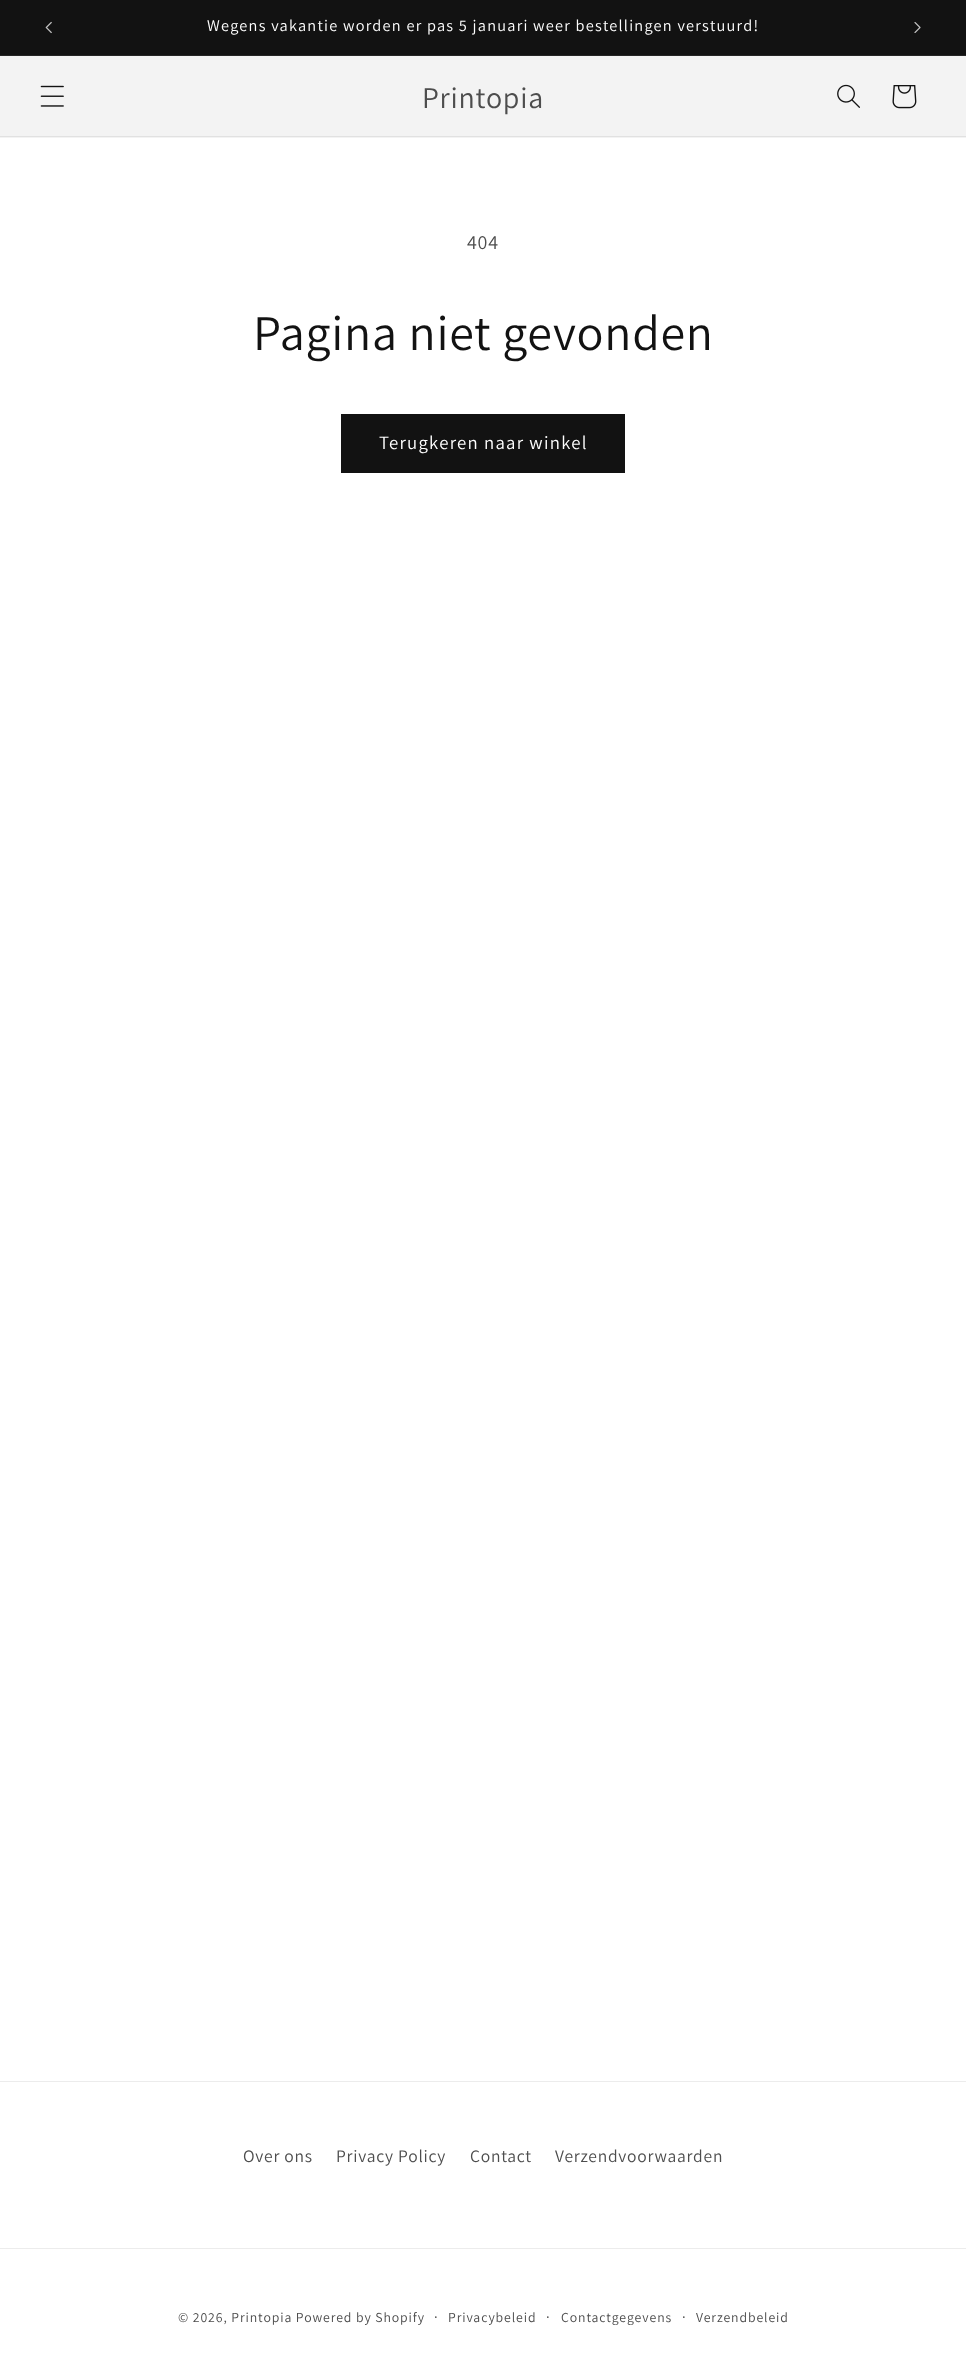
(async () => {
const canvas = document.querySelector("canvas")
canvas.width = 966
canvas.height = 2374
const c = canvas.getContext("2d")
c.miterLimit = 4
c.fontKerning = "normal"
function T(s,x,y){c.fillText(s,x,y)}
function R(x,y,w,h){c.fillRect(x,y,w,h)}
async function I(src,x,y,w,h){const img=new Image();img.src=src;await img.decode();c.drawImage(img,x,y,w,h)}
c.fillStyle="#fff"
R(0,0,966,2374)
c.fillStyle="#121212"
R(0,0,966,55)
c.fillStyle="#252525"
R(0,55,966,1)
await I("1.png",45,21,7,13)
c.letterSpacing="1.25px"
c.font="16.25px Assistant"
c.fillStyle="#fff"
T("Wegens vakantie worden er pas 5 januari weer bestellingen verstuurd!",207,31)
await I("2.png",914,22,7,11)
c.fillStyle="#f3f3f3"
R(0,56,966,82)
c.fillStyle="#e1e1e1"
R(0,136,966,1)
await I("3.png",40,85,24,22)
c.letterSpacing="0.75px"
c.font="30px Assistant"
c.fillStyle="#4d4d4d"
T("Printopia",422,108)
await I("4.png",837,84,23,24)
await I("5.png",892,85,25,24)
c.font="20px Assistant"
T("404",467,249)
c.font="50px Assistant"
c.fillStyle="#121212"
T("Pagina niet gevonden",253,350)
R(341,414,284,59)
c.letterSpacing="1.25px"
c.font="18.75px Assistant"
c.fillStyle="#fff"
T("Terugkeren naar winkel",379,449)
c.fillStyle="#ececec"
R(0,2081,966,1)
c.letterSpacing="0.75px"
c.font="17.5px Assistant"
c.fillStyle="#4d4d4d"
T("Over ons",243,2162)
T("Privacy Policy",336,2162)
T("Contact",470,2162)
T("Verzendvoorwaarden",555,2162)
c.fillStyle="#ececec"
R(0,2248,966,1)
c.letterSpacing="0.9px"
c.font="13.75px Assistant"
c.fillStyle="#4d4d4d"
T("© 2026, Printopia Powered by Shopify",178,2322)
c.font="15px Assistant"
T("·",434,2322)
c.font="13.75px Assistant"
T("Privacybeleid",448,2322)
c.font="15px Assistant"
T("·",546,2322)
c.font="13.75px Assistant"
T("Contactgegevens",561,2322)
c.font="15px Assistant"
T("·",682,2322)
c.font="13.75px Assistant"
T("Verzendbeleid",696,2322)
})()
